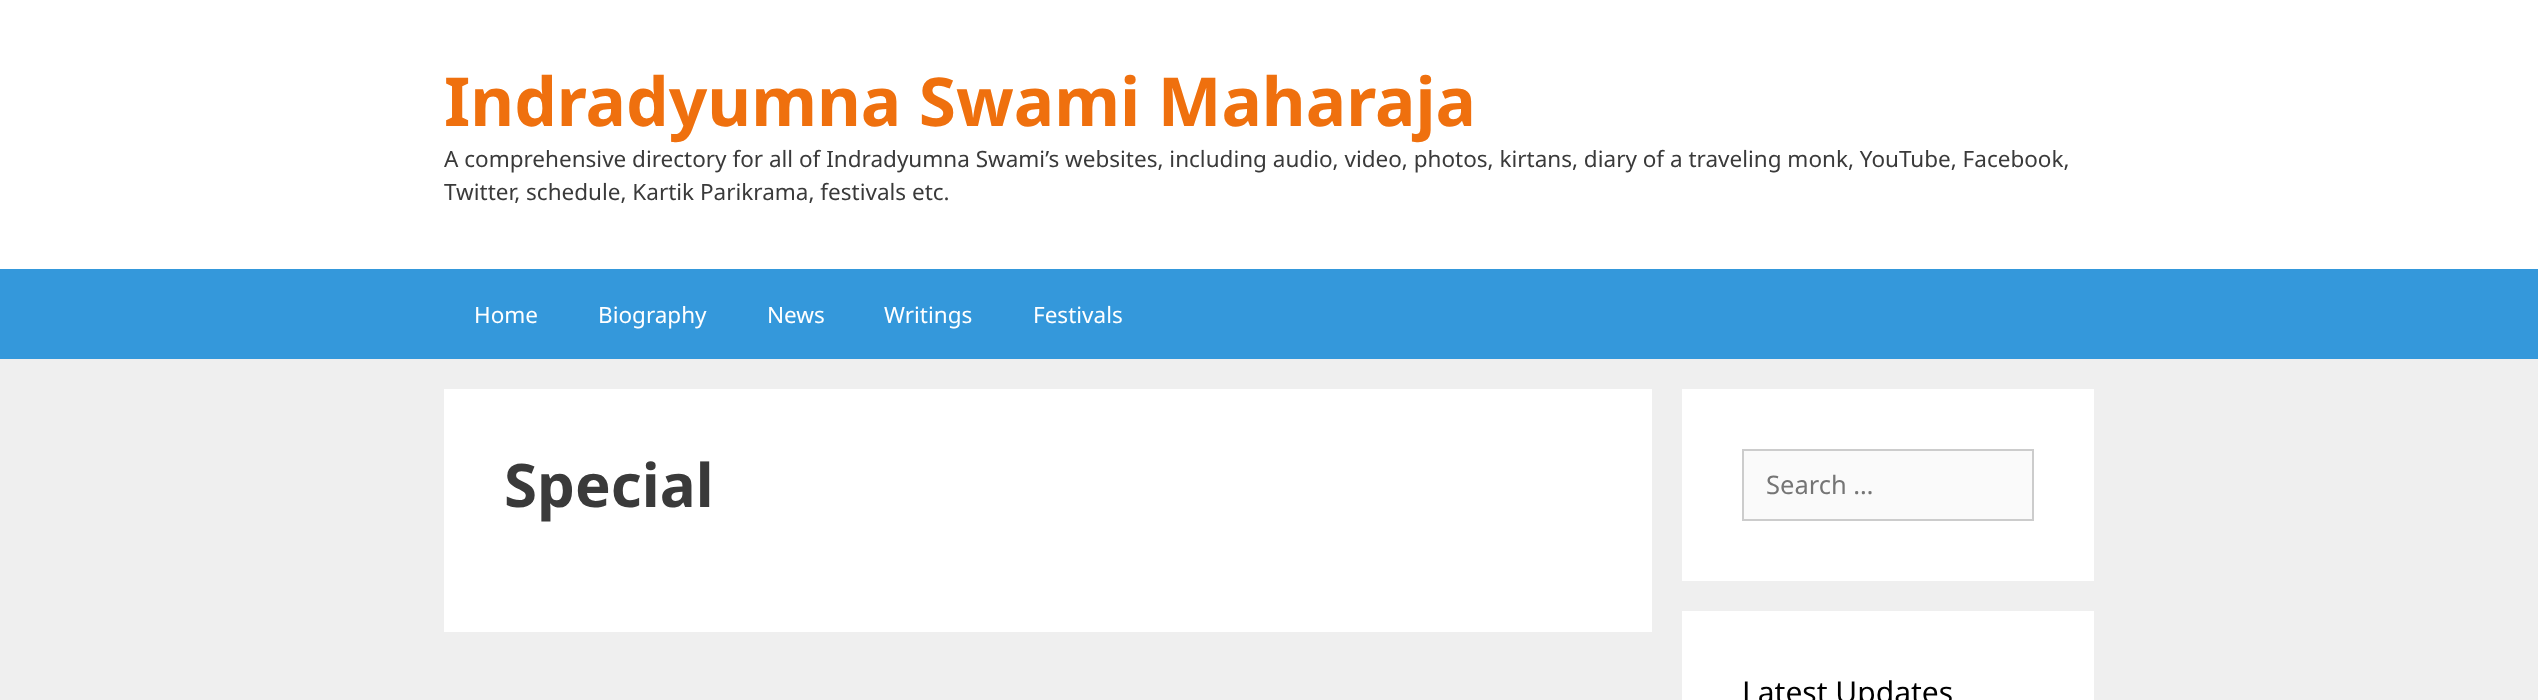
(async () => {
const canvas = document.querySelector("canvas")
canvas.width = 2538
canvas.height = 700
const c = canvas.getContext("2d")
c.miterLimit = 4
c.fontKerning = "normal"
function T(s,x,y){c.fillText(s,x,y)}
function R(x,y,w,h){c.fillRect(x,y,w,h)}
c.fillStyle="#efefef"
R(0,0,2538,700)
c.fillStyle="#fff"
R(0,0,2538,269)
c.font="bold 67.5px Noto Sans"
c.fillStyle="#ef700e"
T("Indradyumna Swami Maharaja",444,126)
c.font="22.5px Noto Sans"
c.fillStyle="#3a3a3a"
T("A comprehensive directory for all of Indradyumna Swami’s websites, including audio, video, photos, kirtans, diary of a traveling monk, YouTube, Facebook,",444,167)
T("Twitter, schedule, Kartik Parikrama, festivals etc.",444,200)
c.fillStyle="#3498db"
R(0,269,2538,90)
c.fillStyle="#fff"
T("Home",474,323)
T("Biography",598,323)
T("News",767,323)
T("Writings",884,323)
T("Festivals",1033,323)
R(444,389,1208,243)
c.font="bold 60px Noto Sans"
c.fillStyle="#3a3a3a"
T("Special",504,507)
c.fillStyle="#fff"
R(1682,389,412,192)
c.fillStyle="#fafafa"
c.beginPath()
c.rect(1743,450,290,70)
c.fill()
c.strokeStyle="#ccc"
c.lineWidth=2
c.stroke()
c.font="25.5px Noto Sans"
c.fillStyle="#757575"
T("Search …",1766,494)
c.fillStyle="#fff"
R(1682,611,412,89)
c.font="30px Noto Sans"
c.fillStyle="#000"
T("Latest Updates",1742,703)
})()
